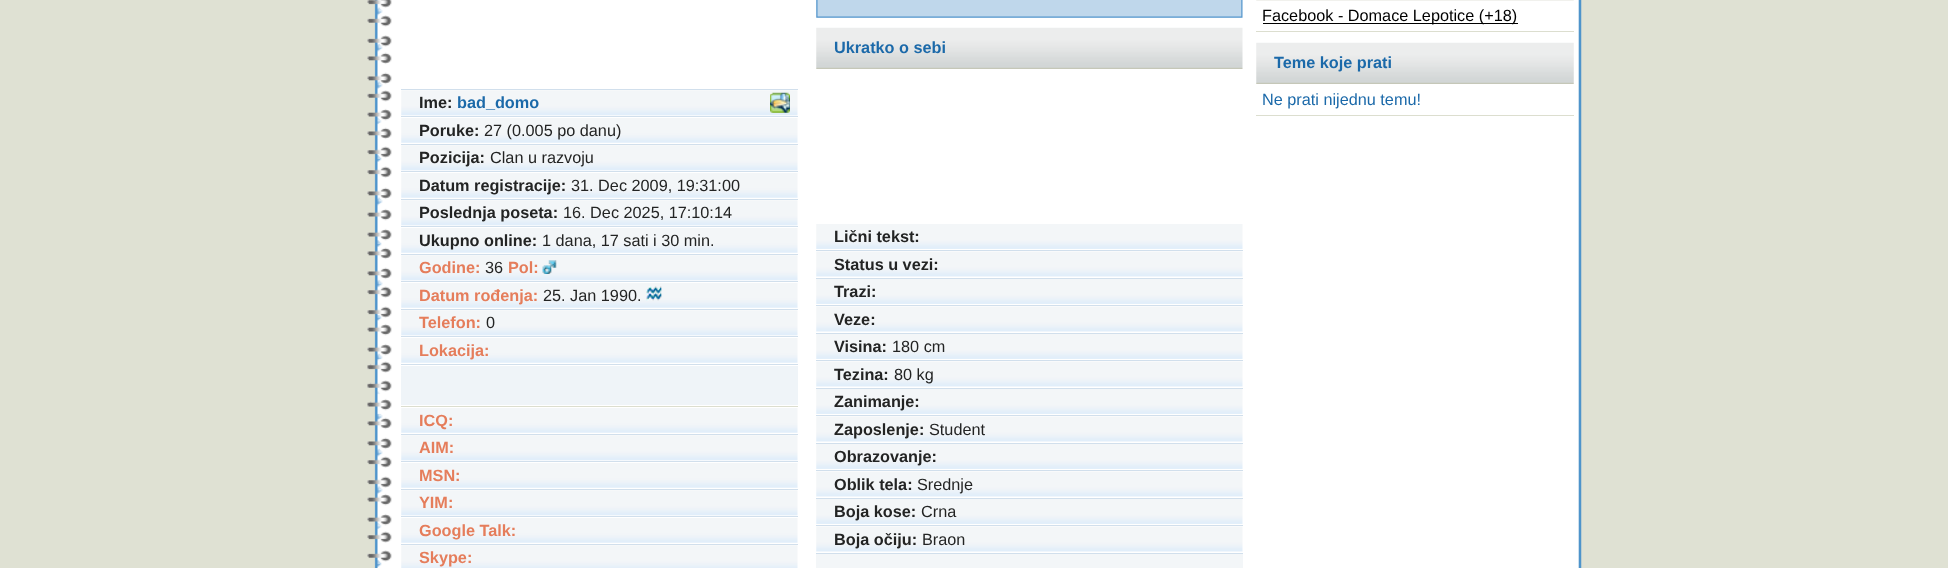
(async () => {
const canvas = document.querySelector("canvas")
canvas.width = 1948
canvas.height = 568
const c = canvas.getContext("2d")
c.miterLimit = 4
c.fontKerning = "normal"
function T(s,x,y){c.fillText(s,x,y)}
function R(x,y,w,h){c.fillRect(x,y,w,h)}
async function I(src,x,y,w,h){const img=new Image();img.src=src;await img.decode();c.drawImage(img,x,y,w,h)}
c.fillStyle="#dfe1d3"
R(0,0,1948,568)
await I("1.png",367,0,1215,568)
c.fillStyle="#d1dfec"
R(401,89,397,1)
await I("2.png",401,90,397,26)
R(401,116,397,1)
c.font="bold 16.25px Liberation Sans"
c.fillStyle="#232424"
T("Ime:",419,108)
c.fillStyle="#1b69a9"
T("bad_domo",457,108)
await I("3.png",770,92,20,21)
await I("4.png",401,118,397,25)
c.fillStyle="#d1dfec"
R(401,144,397,1)
c.fillStyle="#232424"
T("Poruke:",419,136)
c.font="16.25px Liberation Sans"
T("27 (0.005 po danu)",484,136)
await I("2.png",401,145,397,26)
c.fillStyle="#d1dfec"
R(401,171,397,1)
c.font="bold 16.25px Liberation Sans"
c.fillStyle="#232424"
T("Pozicija:",419,163)
c.font="16.25px Liberation Sans"
T("Clan u razvoju",490,163)
await I("4.png",401,173,397,25)
c.fillStyle="#d1dfec"
R(401,199,397,1)
c.font="bold 16.25px Liberation Sans"
c.fillStyle="#232424"
T("Datum registracije:",419,191)
c.font="16.25px Liberation Sans"
T("31. Dec 2009, 19:31:00",571,191)
await I("2.png",401,200,397,26)
c.fillStyle="#d1dfec"
R(401,226,397,1)
c.font="bold 16.25px Liberation Sans"
c.fillStyle="#232424"
T("Poslednja poseta:",419,218)
c.font="16.25px Liberation Sans"
T("16. Dec 2025, 17:10:14",563,218)
await I("4.png",401,228,397,25)
c.fillStyle="#d1dfec"
R(401,254,397,1)
c.font="bold 16.25px Liberation Sans"
c.fillStyle="#232424"
T("Ukupno online:",419,246)
c.font="16.25px Liberation Sans"
T("1 dana, 17 sati i 30 min.",542,246)
await I("2.png",401,255,397,26)
c.fillStyle="#d1dfec"
R(401,281,397,1)
c.font="bold 16.25px Liberation Sans"
c.fillStyle="#e57d5b"
T("Godine:",419,273)
c.font="16.25px Liberation Sans"
c.fillStyle="#232424"
T("36",485,273)
c.font="bold 16.25px Liberation Sans"
c.fillStyle="#e57d5b"
T("Pol:",508,273)
await I("5.png",542,260,15,14)
await I("4.png",401,283,397,25)
c.fillStyle="#d1dfec"
R(401,309,397,1)
c.fillStyle="#e57d5b"
T("Datum rođenja:",419,301)
c.font="16.25px Liberation Sans"
c.fillStyle="#232424"
T("25. Jan 1990.",543,301)
await I("6.png",646,286,16,15)
await I("2.png",401,310,397,26)
c.fillStyle="#d1dfec"
R(401,336,397,1)
c.font="bold 16.25px Liberation Sans"
c.fillStyle="#e57d5b"
T("Telefon:",419,328)
c.font="16.25px Liberation Sans"
c.fillStyle="#232424"
T("0",486,328)
await I("4.png",401,338,397,25)
c.fillStyle="#d1dfec"
R(401,364,397,1)
c.font="bold 16.25px Liberation Sans"
c.fillStyle="#e57d5b"
T("Lokacija:",419,356)
c.fillStyle="#dcdecf"
R(401,406,397,1)
c.fillStyle="#eff4f8"
R(401,366,397,39)
await I("4.png",401,408,397,25)
c.fillStyle="#d1dfec"
R(401,434,397,1)
c.fillStyle="#e57d5b"
T("ICQ:",419,426)
await I("2.png",401,435,397,26)
c.fillStyle="#d1dfec"
R(401,461,397,1)
c.fillStyle="#e57d5b"
T("AIM:",419,453)
await I("4.png",401,463,397,25)
c.fillStyle="#d1dfec"
R(401,489,397,1)
c.fillStyle="#e57d5b"
T("MSN:",419,481)
await I("2.png",401,490,397,26)
c.fillStyle="#d1dfec"
R(401,516,397,1)
c.fillStyle="#e57d5b"
T("YIM:",419,508)
await I("4.png",401,518,397,25)
c.fillStyle="#d1dfec"
R(401,544,397,1)
c.fillStyle="#e57d5b"
T("Google Talk:",419,536)
await I("7.png",401,545,397,23)
T("Skype:",419,563)
await I("8.png",816,0,427,18)
await I("9.png",816,27,427,42)
c.fillStyle="#1b69a9"
T("Ukratko o sebi",834,53)
await I("10.png",816,224,427,25)
c.fillStyle="#d1dfec"
R(816,250,427,1)
c.fillStyle="#232424"
T("Lični tekst:",834,242)
await I("11.png",816,251,427,26)
c.fillStyle="#d1dfec"
R(816,278,427,1)
c.fillStyle="#232424"
T("Status u vezi:",834,270)
await I("10.png",816,279,427,25)
c.fillStyle="#d1dfec"
R(816,305,427,1)
c.fillStyle="#232424"
T("Trazi:",834,297)
await I("11.png",816,306,427,26)
c.fillStyle="#d1dfec"
R(816,333,427,1)
c.fillStyle="#232424"
T("Veze:",834,325)
await I("10.png",816,334,427,25)
c.fillStyle="#d1dfec"
R(816,360,427,1)
c.fillStyle="#232424"
T("Visina:",834,352)
c.font="16.25px Liberation Sans"
T("180 cm",892,352)
await I("11.png",816,361,427,26)
c.fillStyle="#d1dfec"
R(816,388,427,1)
c.font="bold 16.25px Liberation Sans"
c.fillStyle="#232424"
T("Tezina:",834,380)
c.font="16.25px Liberation Sans"
T("80 kg",894,380)
await I("10.png",816,389,427,25)
c.fillStyle="#d1dfec"
R(816,415,427,1)
c.font="bold 16.25px Liberation Sans"
c.fillStyle="#232424"
T("Zanimanje:",834,407)
await I("11.png",816,416,427,26)
c.fillStyle="#d1dfec"
R(816,443,427,1)
c.fillStyle="#232424"
T("Zaposlenje:",834,435)
c.font="16.25px Liberation Sans"
T("Student",929,435)
await I("10.png",816,444,427,25)
c.fillStyle="#d1dfec"
R(816,470,427,1)
c.font="bold 16.25px Liberation Sans"
c.fillStyle="#232424"
T("Obrazovanje:",834,462)
await I("11.png",816,471,427,26)
c.fillStyle="#d1dfec"
R(816,498,427,1)
c.fillStyle="#232424"
T("Oblik tela:",834,490)
c.font="16.25px Liberation Sans"
T("Srednje",917,490)
await I("10.png",816,499,427,25)
c.fillStyle="#d1dfec"
R(816,525,427,1)
c.font="bold 16.25px Liberation Sans"
c.fillStyle="#232424"
T("Boja kose:",834,517)
c.font="16.25px Liberation Sans"
T("Crna",921,517)
await I("11.png",816,526,427,26)
c.fillStyle="#d1dfec"
R(816,553,427,1)
c.font="bold 16.25px Liberation Sans"
c.fillStyle="#232424"
T("Boja očiju:",834,545)
c.font="16.25px Liberation Sans"
T("Braon",922,545)
c.fillStyle="#f3f6f8"
R(816,554,427,14)
await I("12.png",1256,0,318,1)
c.fillStyle="#dcdecf"
R(1256,31,318,1)
c.fillStyle="#000"
R(1263,23,255,1)
T("Facebook - Domace Lepotice (+18)",1262,21)
await I("13.png",1256,42,318,42)
c.font="bold 16.25px Liberation Sans"
c.fillStyle="#1b69a9"
T("Teme koje prati",1274,68)
c.fillStyle="#dcdecf"
R(1256,115,318,1)
c.font="16.25px Liberation Sans"
c.fillStyle="#1b69a9"
T("Ne prati nijednu temu!",1262,105)
})()
